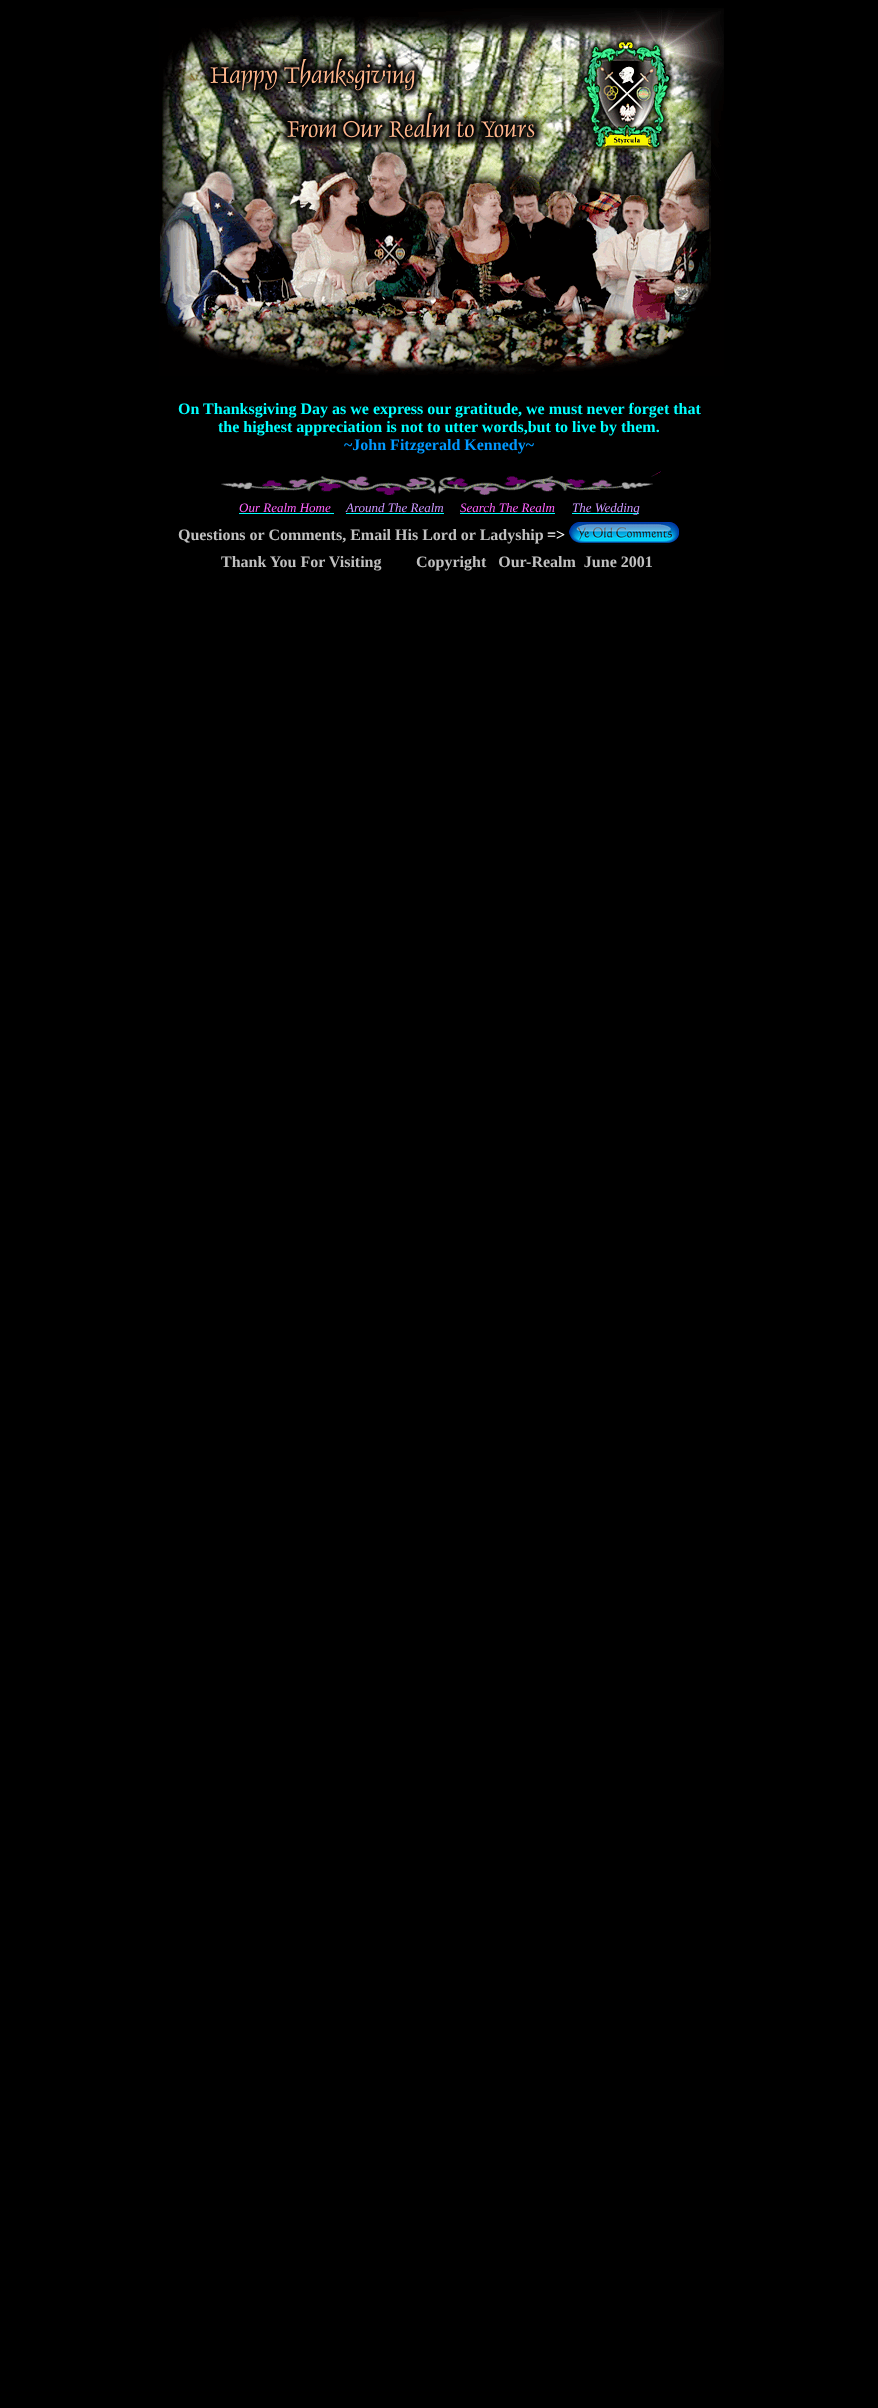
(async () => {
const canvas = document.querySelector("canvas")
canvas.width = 878
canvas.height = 2408
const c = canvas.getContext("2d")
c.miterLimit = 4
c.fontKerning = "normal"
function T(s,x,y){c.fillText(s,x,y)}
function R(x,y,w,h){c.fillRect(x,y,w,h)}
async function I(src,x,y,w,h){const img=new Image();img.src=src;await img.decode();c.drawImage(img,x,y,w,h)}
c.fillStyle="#000"
R(0,0,878,2408)
await I("1.png",159,8,565,368)
c.font="bold 16px Liberation Serif"
c.fillStyle="#0ff"
T("On Thanksgiving Day as we express our gratitude, we must never forget that",178,414)
T("the highest appreciation is not to utter words,but to live by them.",218,432)
c.fillStyle="#09f"
T("~John Fitzgerald Kennedy~",344,450)
await I("2.png",221,471,440,24)
c.font="italic 13px Liberation Serif"
c.fillStyle="#f6f"
T("Our Realm Home",239,512)
c.fillStyle="#0ff"
R(239,513,95,1)
c.fillStyle="#c9f"
T("Around The Realm",346,512)
c.fillStyle="#0ff"
R(346,513,98,1)
c.fillStyle="#f6f"
T("Search The Realm",460,512)
c.fillStyle="#0ff"
R(460,513,95,1)
R(572,513,67,1)
c.fillStyle="#c9f"
T("The Wedding",572,512)
c.font="bold 16px Liberation Serif"
c.fillStyle="#c0c0c0"
T("Questions or Comments, Email His Lord or Ladyship",178,540)
c.fillStyle="#fff"
T("=>",547,540)
await I("3.png",569,522,110,23)
c.fillStyle="#c0c0c0"
T("Thank You For Visiting",221,567)
T("Copyright   Our-Realm  June 2001",416,567)
})()
